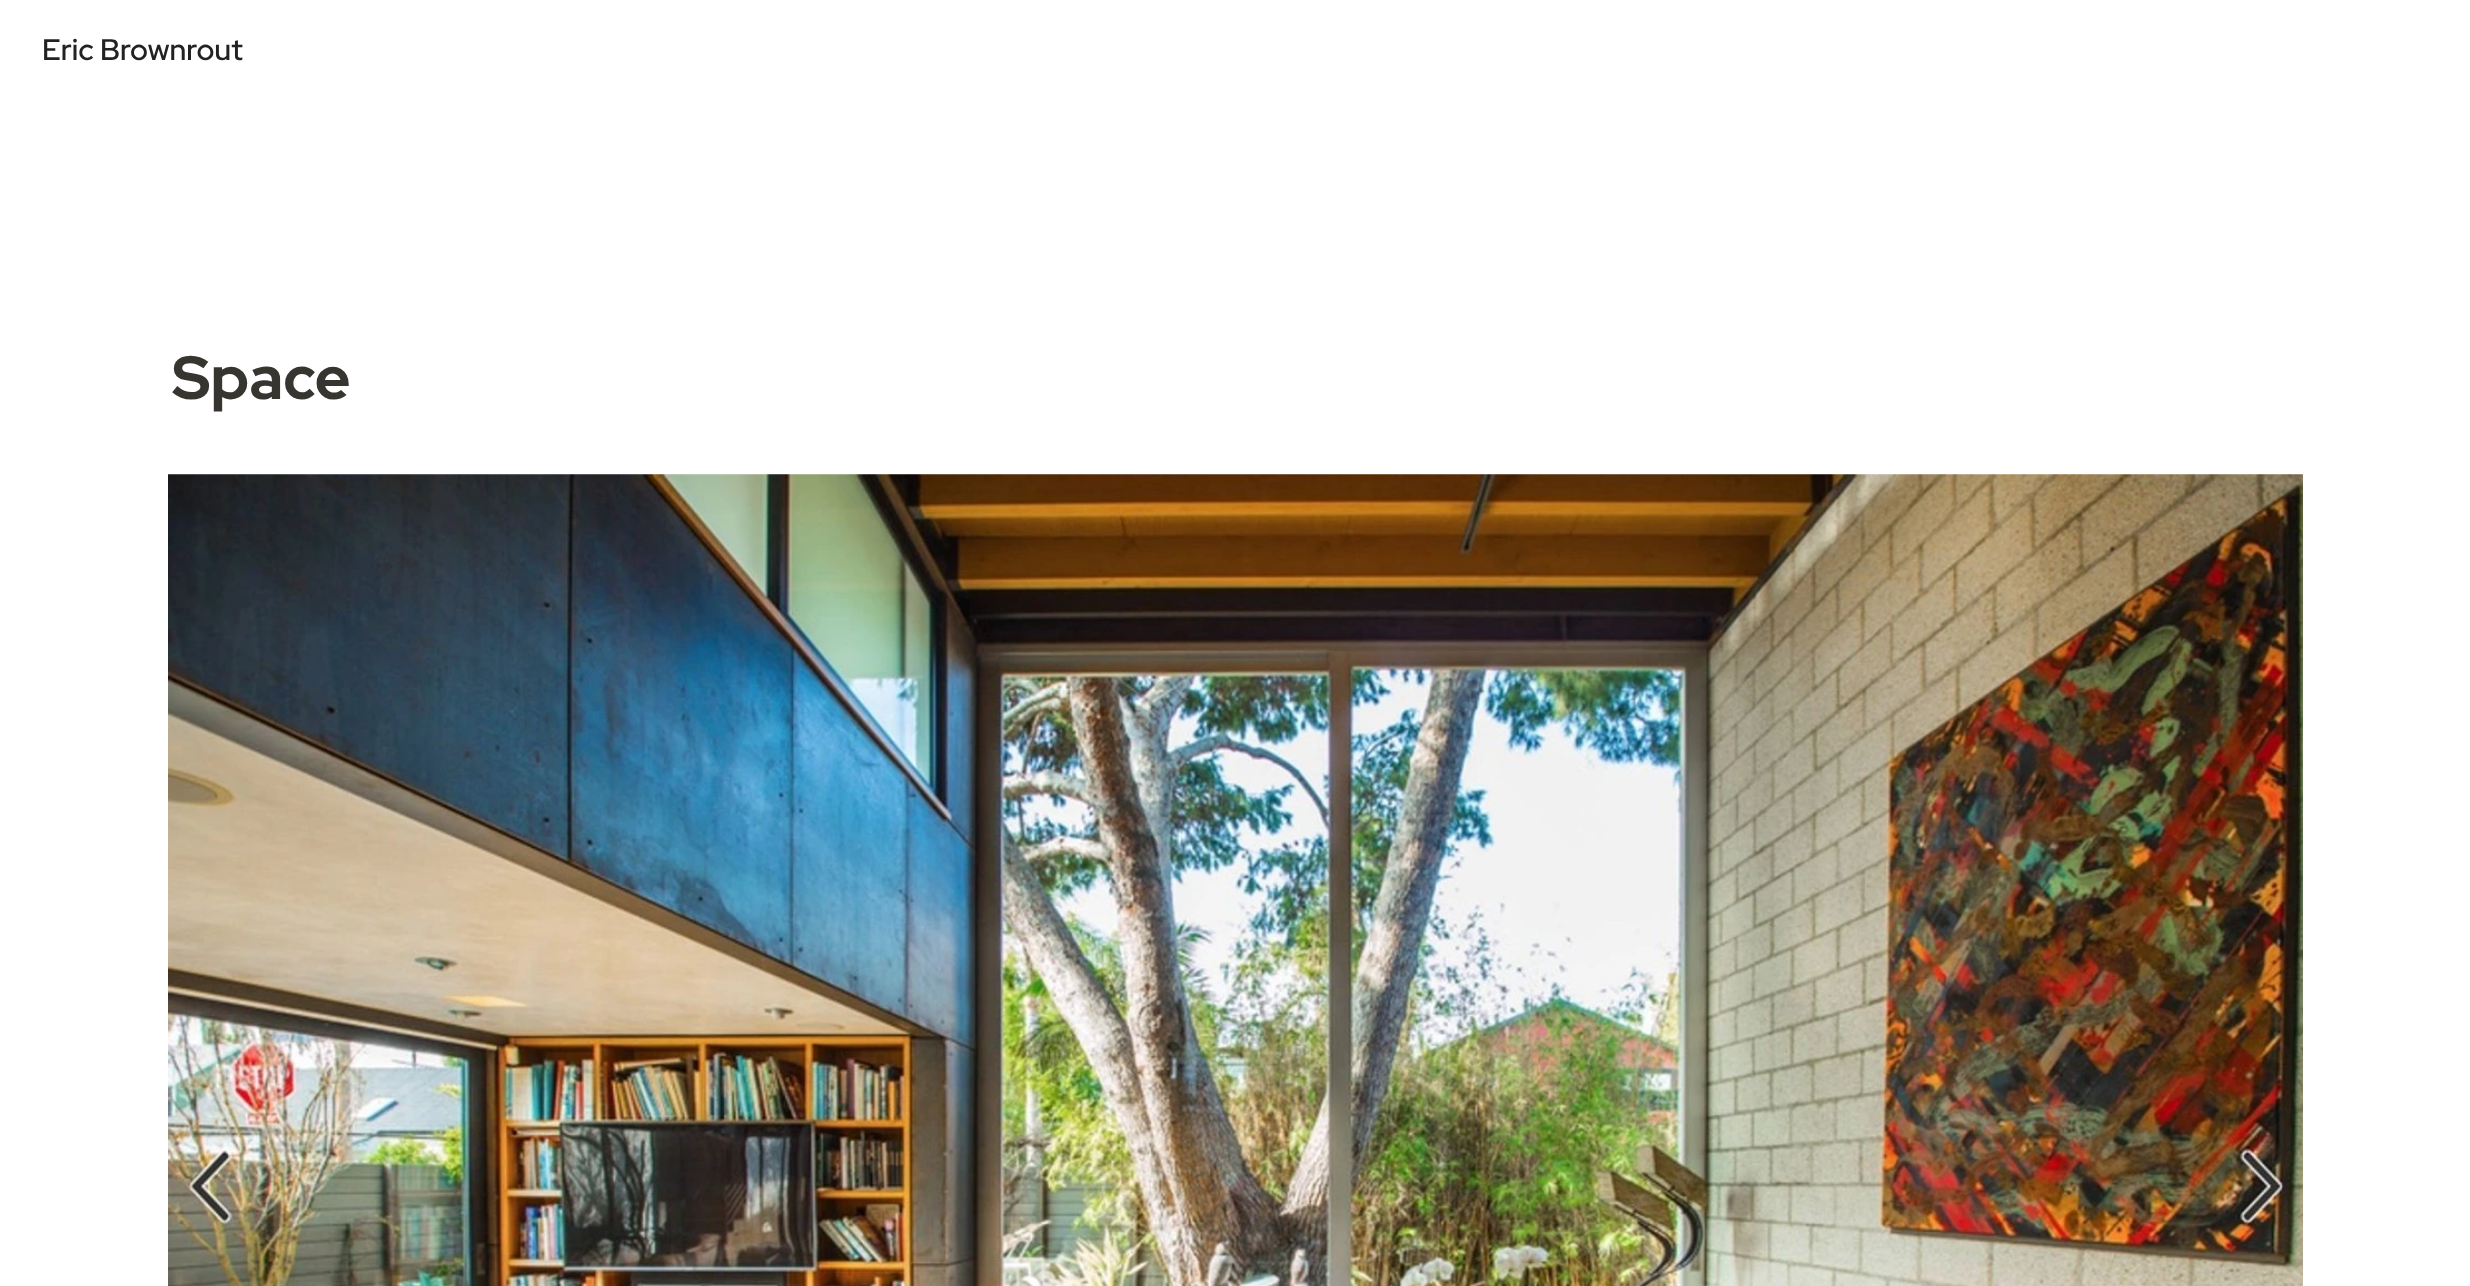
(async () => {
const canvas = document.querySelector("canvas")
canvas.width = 2470
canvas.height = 1286
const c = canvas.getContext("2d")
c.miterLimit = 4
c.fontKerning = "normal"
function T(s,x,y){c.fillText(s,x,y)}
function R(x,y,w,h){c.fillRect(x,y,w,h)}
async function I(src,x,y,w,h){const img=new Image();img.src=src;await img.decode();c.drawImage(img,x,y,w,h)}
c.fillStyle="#fff"
R(0,0,2470,1286)
c.font="600 29.75px Red Hat Display"
c.fillStyle="#222"
T("Eric Brownrout",42,60)
c.font="bold 61px Red Hat Display"
c.fillStyle="#37352f"
T("Space",172,399)
await I("1.png",168,474,2135,812)
})()
